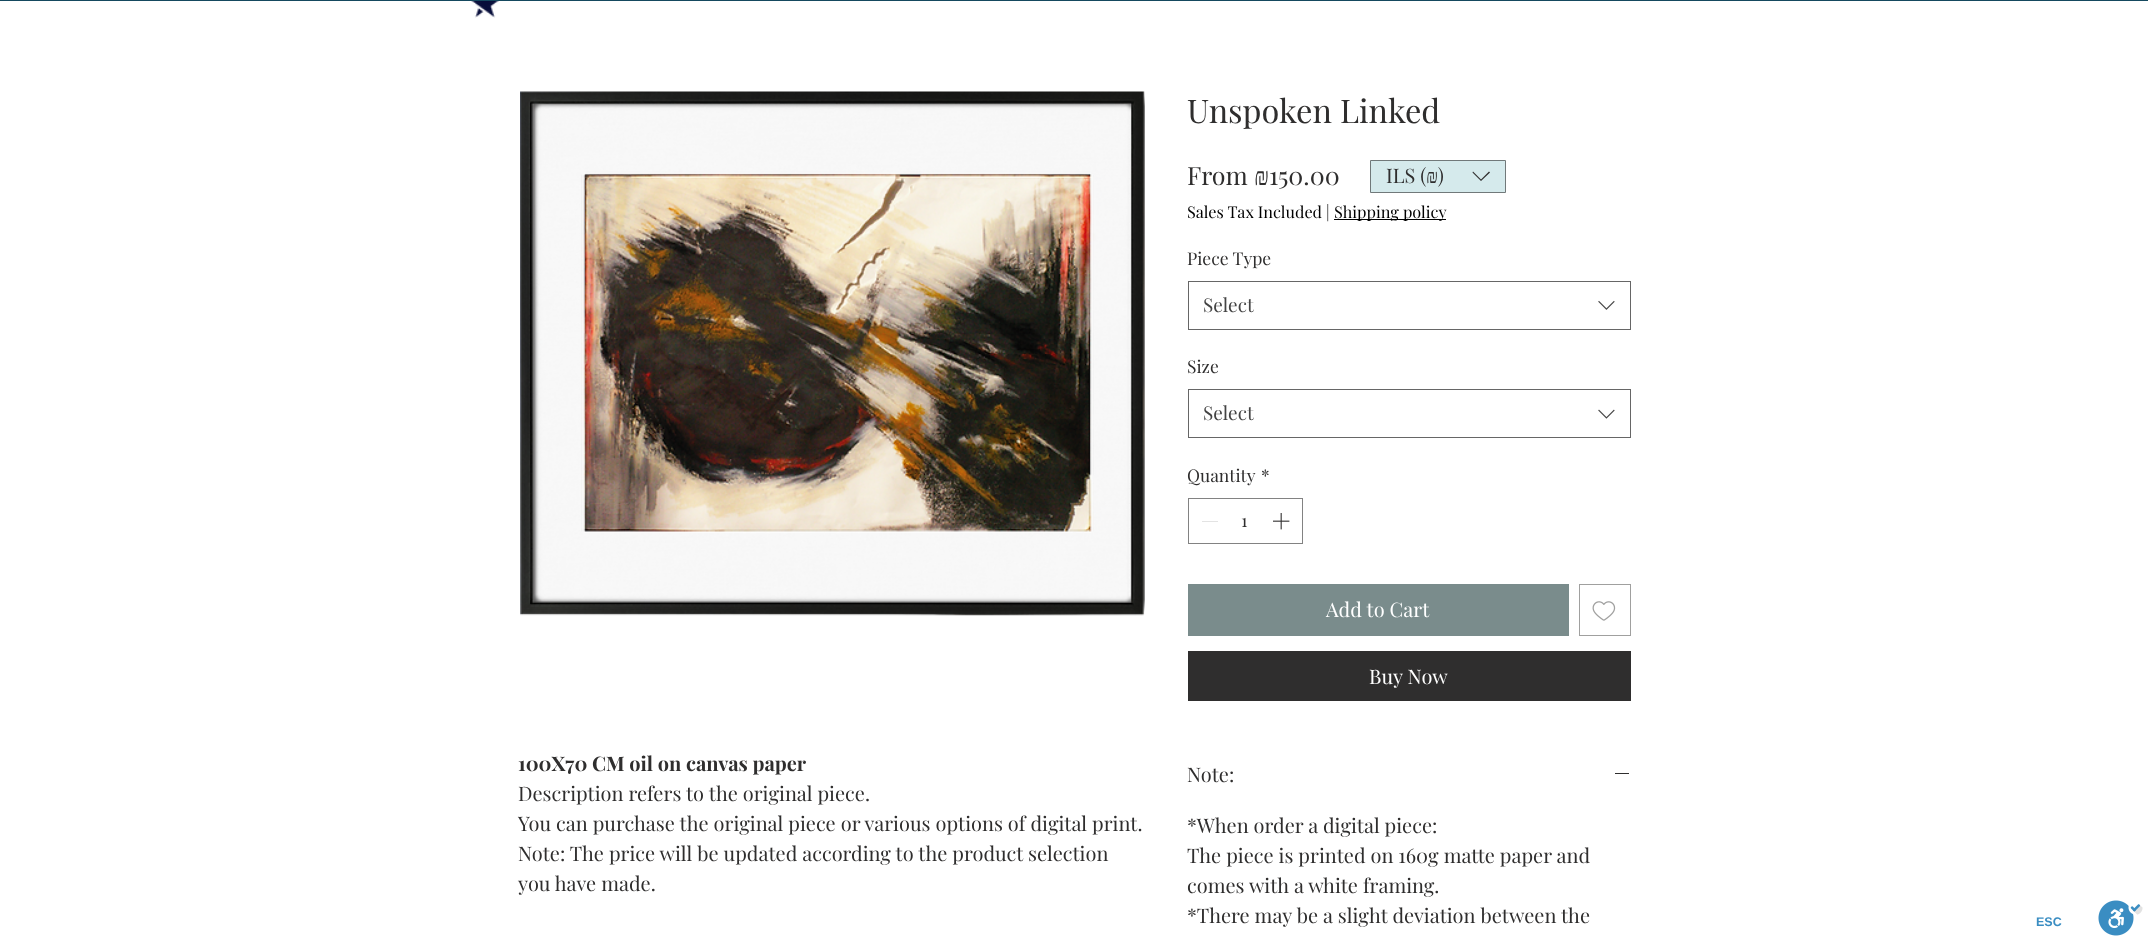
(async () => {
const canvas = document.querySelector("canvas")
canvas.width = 2148
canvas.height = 940
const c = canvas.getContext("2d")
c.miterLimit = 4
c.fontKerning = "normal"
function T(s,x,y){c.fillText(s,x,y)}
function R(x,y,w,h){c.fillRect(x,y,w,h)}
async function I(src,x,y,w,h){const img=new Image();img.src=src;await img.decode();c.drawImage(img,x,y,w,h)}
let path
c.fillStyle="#fff"
R(0,0,2148,940)
await I("1.png",471,1,28,17)
await I("2.png",520,91,625,525)
c.font="bold 20px Playfair Display"
c.fillStyle="#2f2e2e"
T("100X70 CM oil on canvas paper",518,771)
c.font="20px Playfair Display"
T("Description refers to the original piece.",518,801)
T("You can purchase the original piece or various options of digital print.",518,831)
T("Note: The price will be updated according to the product selection",518,861)
T("you have made.",518,891)
c.font="32.5px Playfair Display"
T("Unspoken Linked",1187,123)
c.font="25px Playfair Display"
T("From",1187,185)
c.font="25px Liberation Serif"
T("₪",1254,185)
c.font="25px Playfair Display"
T("150.00",1269,185)
c.font="16.25px Playfair Display"
c.fillStyle="#000"
T("Sales Tax Included |",1187,218)
R(1334,219,112,1)
T("Shipping policy",1334,218)
c.font="17.5px Playfair Display"
c.fillStyle="#2f2e2e"
T("Piece Type",1187,265)
c.strokeStyle="#666"
c.strokeRect(1188.5,281.5,442,48)
c.font="19px Playfair Display"
c.fillStyle="#444"
T("Select",1203,312)
await I("3.png",1598,300,17,10)
c.font="17.5px Playfair Display"
c.fillStyle="#2f2e2e"
T("Size",1187,373)
c.strokeRect(1188.5,389.5,442,48)
c.font="19px Playfair Display"
c.fillStyle="#444"
T("Select",1203,420)
await I("4.png",1598,409,17,10)
c.font="17.5px Playfair Display"
c.fillStyle="#2f2e2e"
T("Quantity",1187,482)
T("*",1261,482)
c.strokeStyle="#828282"
c.strokeRect(1188.5,498.5,114,45)
c.fillStyle="#e3e3e3"
R(1202,521,16,1)
c.fillStyle="#2f2e2e"
T("1",1241,527)
await I("5.png",1273,513,17,17)
c.fillStyle="#7a8c8c"
R(1188,584,381,52)
c.font="20px Playfair Display"
c.fillStyle="#fff"
T("Add to Cart",1326,617)
c.strokeStyle="#a0a09f"
c.strokeRect(1579.5,584.5,51,51)
await I("6.png",1592,601,24,20)
c.fillStyle="#2f2e2e"
R(1188,651,443,50)
c.fillStyle="#fff"
T("Buy Now",1369,684)
c.fillStyle="#2f2e2e"
T("Note:",1187,782)
R(1615,773,14,1)
T("*When order a digital piece:",1187,833)
T("The piece is printed on 160g matte paper and",1187,863)
T("comes with a white framing.",1187,893)
T("*There may be a slight deviation between the",1187,923)
c.fillStyle="#d5eaec"
c.beginPath()
c.rect(1370.5,160.5,135,32)
c.fill()
c.strokeStyle="#71797a"
c.stroke()
c.fillStyle="#2f2e2e"
T("ILS (",1386,183)
c.font="20px Liberation Serif"
T("₪",1426,183)
c.font="20px Playfair Display"
T(")",1438,183)
path = new Path2D("M1489 171.5l1 1l-9 8.5l-8.5-8.5l.5-1l8 8z")
c.fill(path,"evenodd")
c.fillStyle="#15495f"
R(0,0,2148,1)
c.font="bold 12.5px Liberation Sans"
c.fillStyle="#3a8dc2"
T("ESC",2036,926)
await I("7.png",2098,900,45,36)
})()
